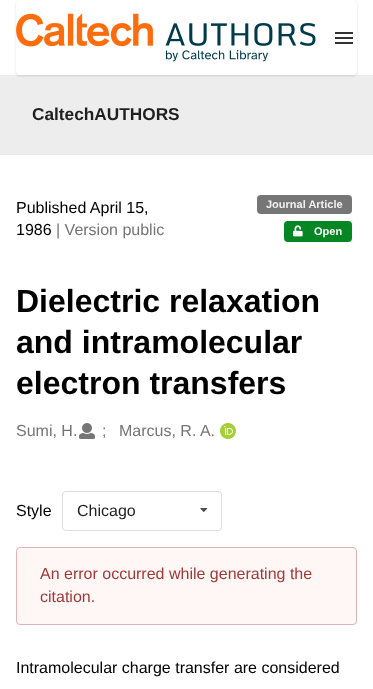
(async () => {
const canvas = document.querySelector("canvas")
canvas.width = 373
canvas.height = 689
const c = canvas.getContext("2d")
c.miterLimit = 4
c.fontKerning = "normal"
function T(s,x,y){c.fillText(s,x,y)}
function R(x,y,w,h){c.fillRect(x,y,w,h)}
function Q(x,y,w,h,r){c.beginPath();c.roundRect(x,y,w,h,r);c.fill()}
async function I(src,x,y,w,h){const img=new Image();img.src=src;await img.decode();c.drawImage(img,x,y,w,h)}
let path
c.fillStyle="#fff"
R(0,0,373,689)
c.fillStyle="#ededed"
R(0,75,373,80)
c.save()
path = new Path2D("M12 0h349v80h-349zm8 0h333c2 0 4 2 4 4v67c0 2-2 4-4 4h-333c-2 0-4-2-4-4v-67c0-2 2-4 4-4z")
c.clip(path,"evenodd")
c.fillStyle="#22242626"
c.filter="blur(1px)"
c.beginPath()
c.roundRect(16,1,341,75,4)
c.fill()
c.filter="none"
c.restore()
await I("1.png",16,13,300,49)
c.fillStyle="#333"
R(335,37,18,2)
R(335,32,18,2)
R(335,42,18,2)
c.font="bold 17.25px Liberation Sans"
c.fillStyle="#1f1f1f"
T("CaltechAUTHORS",32,120)
c.font="16px Liberation Sans"
c.fillStyle="#000"
T("Published April 15,",16,213)
T("1986",16,235)
c.fillStyle="#757575"
T("| Version public",56,235)
c.fillStyle="#767676"
Q(257,195,95,19,4)
c.font="bold 11px Liberation Sans"
c.fillStyle="#f1f1f1"
T("Journal Article",266,208)
c.fillStyle="#048622"
Q(284,221,68,21,4)
await I("2.png",293,225,10,12)
c.fillStyle="#fff"
T("Open",314,235)
c.font="bold 32px Liberation Sans"
c.fillStyle="#000"
T("Dielectric relaxation",16,312)
T("and intramolecular",16,353)
T("electron transfers",16,394)
c.font="16px Liberation Sans"
c.fillStyle="#757575"
T("Sumi, H.",16,436)
await I("3.png",79,423,16,16)
T(";",102,436)
T("Marcus, R. A.",119,436)
await I("4.png",220,423,16,16)
c.fillStyle="#000"
T("Style",16,516)
c.beginPath()
c.roundRect(62.5,491.5,159,39,3.5)
c.strokeStyle="#dedede"
c.stroke()
c.fillStyle="#1f1f1f"
T("Chicago",77,516)
await I("5.png",200,508,8,4)
c.fillStyle="#fff6f6"
c.beginPath()
c.roundRect(16.5,547.5,340,77,3.5)
c.fill()
c.strokeStyle="#e0b4b4"
c.stroke()
c.fillStyle="#9f3a38"
T("An error occurred while generating the",40,579)
T("citation.",40,602)
c.fillStyle="#000"
T("Intramolecular charge transfer are considered",16,673)
})()
